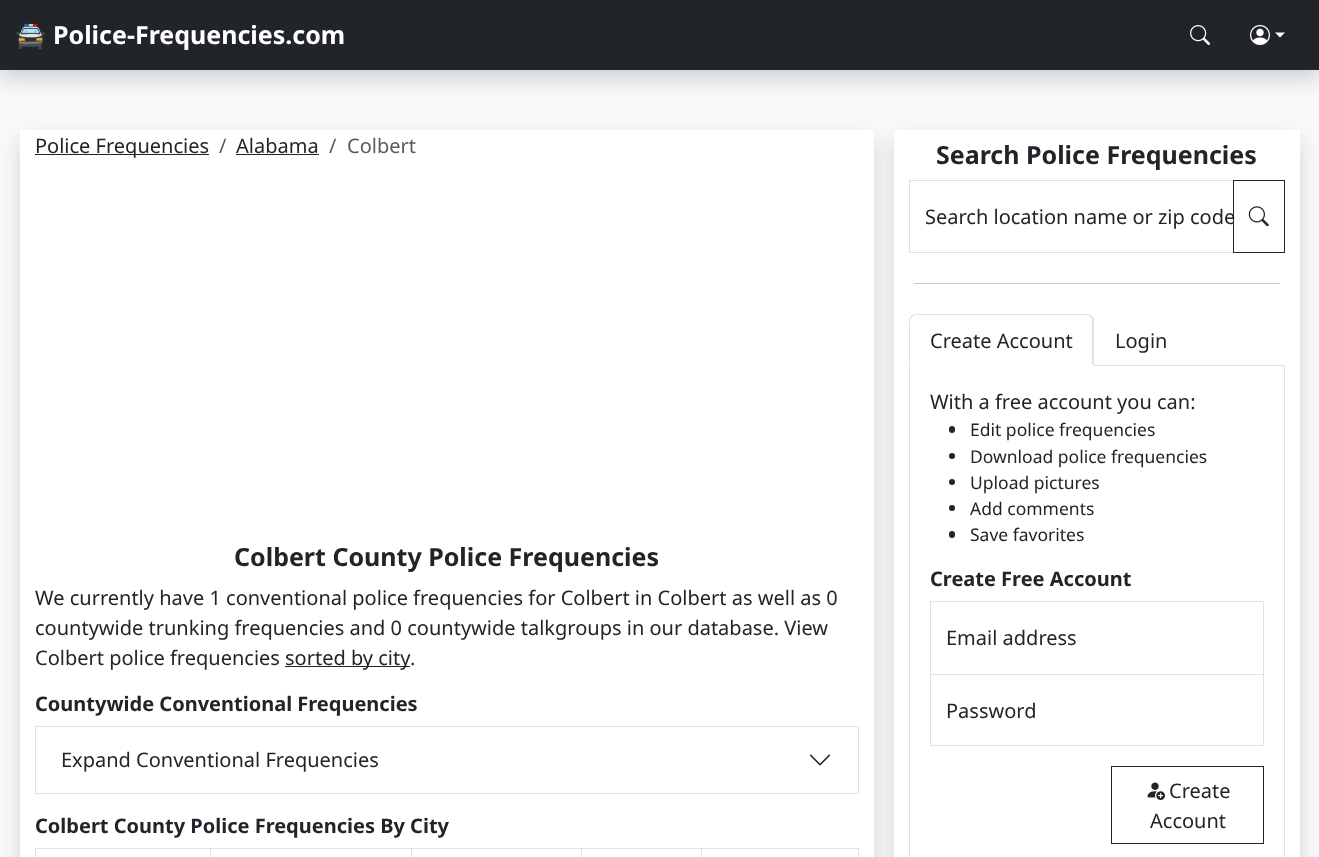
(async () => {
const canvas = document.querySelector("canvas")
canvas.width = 1319
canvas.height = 857
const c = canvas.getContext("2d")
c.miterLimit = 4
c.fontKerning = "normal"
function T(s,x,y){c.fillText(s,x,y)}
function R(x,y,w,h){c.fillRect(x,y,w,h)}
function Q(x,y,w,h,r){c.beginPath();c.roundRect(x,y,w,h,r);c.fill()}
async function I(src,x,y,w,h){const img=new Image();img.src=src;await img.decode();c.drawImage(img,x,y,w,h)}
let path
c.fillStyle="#f8f9fa"
R(0,0,1319,857)
c.fillStyle="#00000026"
c.filter="blur(10px)"
c.beginPath()
c.rect(0,10,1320,70)
c.fill()
c.filter="none"
c.fillStyle="#212529"
R(0,0,1319,70)
c.font="bold 25px Noto Color Emoji"
c.fillStyle="#fff"
T("🚔",15,44)
c.font="bold 25px Noto Sans"
T("Police-Frequencies.com",53,44)
await I("1.png",1190,25,20,20)
await I("2.png",1250,25,20,20)
path = new Path2D("M1275 32.5h10l-5 5z")
c.fill(path)
c.fillStyle="#00000026"
c.filter="blur(10px)"
c.beginPath()
c.rect(20,140,854,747)
c.fill()
c.filter="none"
c.fillStyle="#fff"
R(20,130,854,727)
c.fillStyle="#212529"
R(35,154,174,1)
c.font="20px Noto Sans"
T("Police Frequencies",35,153)
c.fillStyle="#595c5f"
T("/",219,153)
c.fillStyle="#212529"
T("Alabama",236,153)
R(236,154,83,1)
c.fillStyle="#595c5f"
T("/",329,153)
T("Colbert",347,153)
c.font="bold 25px Noto Sans"
c.fillStyle="#212529"
T("Colbert County Police Frequencies",234,566)
c.font="20px Noto Sans"
T("We currently have 1 conventional police frequencies for Colbert in Colbert as well as 0",35,605)
T("countywide trunking frequencies and 0 countywide talkgroups in our database. View",35,635)
T("Colbert police frequencies",35,665)
R(285,666,125,1)
T("sorted by city",285,665)
T(".",410,665)
c.font="bold 20px Noto Sans"
T("Countywide Conventional Frequencies",35,711)
c.strokeStyle="#dee2e6"
c.strokeRect(35.5,726.5,823,67)
c.font="20px Noto Sans"
T("Expand Conventional Frequencies",61,767)
await I("3.png",809,754,22,12)
c.font="bold 20px Noto Sans"
T("Colbert County Police Frequencies By City",35,833)
c.fillStyle="#dee2e6"
R(35,848,824,1)
R(35,848,1,9)
R(210,848,1,9)
R(411,848,1,9)
R(581,848,1,9)
R(858,848,1,9)
R(701,848,1,9)
c.fillStyle="#00000026"
c.filter="blur(10px)"
c.beginPath()
c.rect(894,140,406,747)
c.fill()
c.filter="none"
c.fillStyle="#fff"
R(894,130,406,727)
c.font="bold 25px Noto Sans"
c.fillStyle="#212529"
T("Search Police Frequencies",936,164)
c.strokeRect(909.5,180.5,324,72)
c.font="20px Noto Sans"
T("Search location name or zip code",925,224)
c.strokeStyle="#212529"
c.strokeRect(1233.5,180.5,51,72)
await I("4.png",1248,206,21,21)
c.fillStyle="#c8c9ca"
R(914,283,366,1)
c.fillStyle="#dee2e6"
R(1094,365,191,1)
path = new Path2D("M916 314c-2 0-4 1-5 2l1 1l3-2h171c2 0 3 1 5 2l1-1c-2-1-4-2-6-2z")
c.fill(path)
path = new Path2D("M1092 316l2 3v47l-2-2v-43c0-1 0-3-1-4z")
c.fill(path)
c.fillStyle="#fff"
path = new Path2D("M1094 366h-185l1-1h182v-1z")
c.fill(path)
c.fillStyle="#dee2e6"
path = new Path2D("M911 316c-1 1-2 3-2 5v45l1-1v-44c0-1 1-3 2-4z")
c.fill(path)
c.fillStyle="#212529"
T("Create Account",930,348)
T("Login",1115,348)
c.fillStyle="#dee2e6"
R(1284,366,1,491)
R(909,366,1,491)
c.fillStyle="#212529"
T("With a free account you can:",930,409)
Q(949,426,6,7,3)
c.font="17.5px Noto Sans"
T("Edit police frequencies",970,436)
c.beginPath()
c.arc(952,456,3,0,7)
c.fill()
T("Download police frequencies",970,463)
c.beginPath()
c.arc(952,482,3,0,7)
c.fill()
T("Upload pictures",970,489)
c.beginPath()
c.arc(952,508,3,0,7)
c.fill()
T("Add comments",970,515)
Q(949,531,6,7,3)
T("Save favorites",970,541)
c.font="bold 20px Noto Sans"
T("Create Free Account",930,586)
c.fillStyle="#dee2e6"
R(930,601,334,1)
R(1263,601,1,73)
R(930,601,1,73)
c.font="20px Noto Sans"
c.fillStyle="#212529"
T("Email address",946,645)
c.strokeStyle="#dee2e6"
c.strokeRect(930.5,674.5,333,71)
T("Password",946,718)
c.strokeStyle="#212529"
c.strokeRect(1111.5,766.5,152,77)
await I("5.png",1147,782,18,18)
T("Create",1169,798)
T("Account",1150,828)
})()
